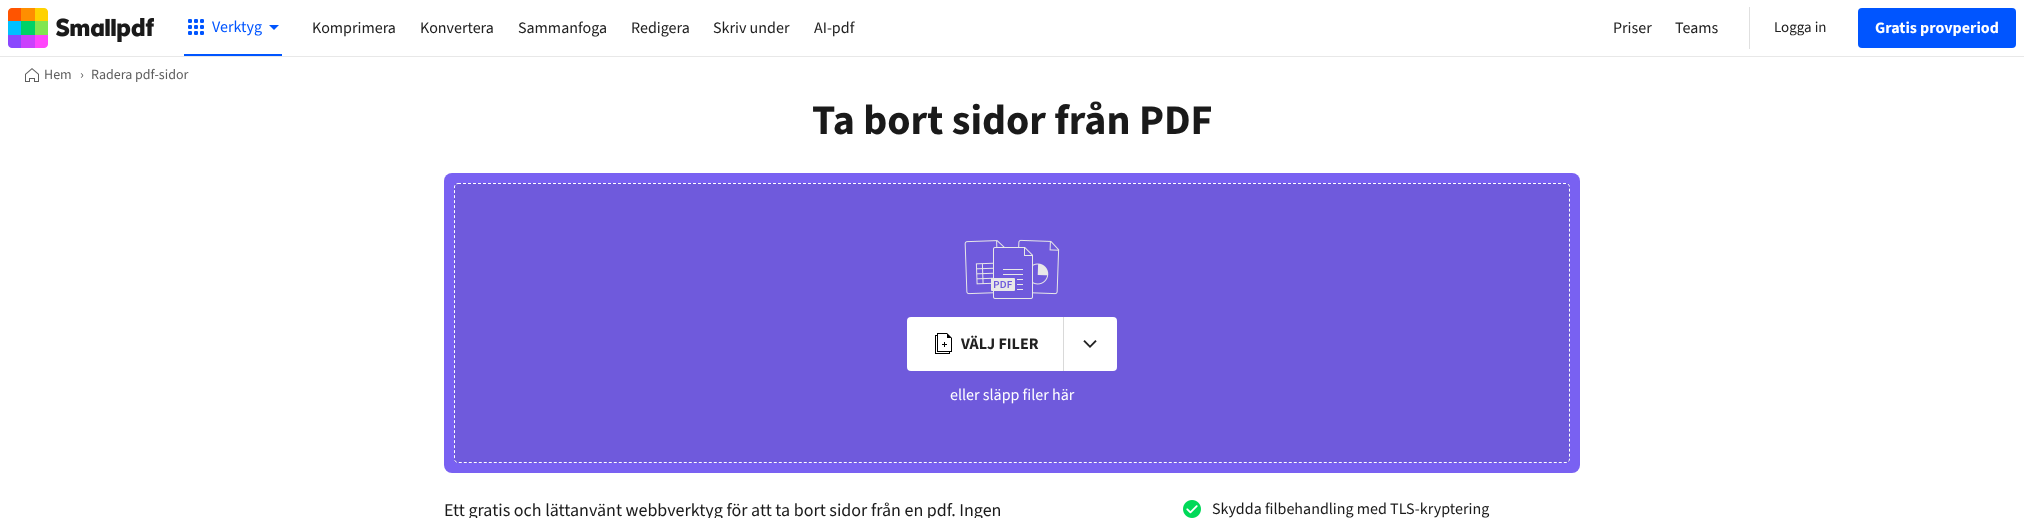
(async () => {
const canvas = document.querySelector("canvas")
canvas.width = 2024
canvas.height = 518
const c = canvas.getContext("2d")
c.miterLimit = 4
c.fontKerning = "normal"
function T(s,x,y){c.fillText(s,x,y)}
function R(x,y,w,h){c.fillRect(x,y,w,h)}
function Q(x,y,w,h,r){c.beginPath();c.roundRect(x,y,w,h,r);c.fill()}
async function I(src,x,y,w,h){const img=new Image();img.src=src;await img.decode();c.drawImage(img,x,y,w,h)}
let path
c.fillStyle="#fff"
R(0,0,2024,518)
c.fillStyle="#e8e8e8"
R(0,56,2024,1)
await I("1.png",8,8,40,40)
await I("2.png",56,18,98,24)
c.fillStyle="#05f"
R(184,54,98,2)
await I("3.png",188,19,16,16)
c.font="16px 'Source Sans 3'"
T("Verktyg",212,32)
path = new Path2D("M279 25h-10l5 5z")
c.fill(path,"evenodd")
c.fillStyle="#212121"
T("Komprimera",312,33)
T("Konvertera",420,33)
T("Sammanfoga",518,33)
T("Redigera",631,33)
T("Skriv under",713,33)
T("AI-pdf",814,33)
T("Priser",1613,33)
T("Teams",1675,33)
c.fillStyle="#e0e0e0"
R(1749,7,1,42)
c.font="15px 'Source Sans 3'"
c.fillStyle="#212121"
T("Logga in",1774,32)
c.fillStyle="#05f"
Q(1858,8,158,40,4)
c.font="bold 16px 'Source Sans 3'"
c.fillStyle="#fff"
T("Gratis provperiod",1875,33)
await I("4.png",25,68,14,14)
c.font="14px 'Source Sans 3'"
c.fillStyle="#5e5e5e"
T("Hem",44,79)
T("›",80,79)
T("Radera pdf-sidor",91,79)
c.font="bold 42px 'Source Sans 3'"
c.fillStyle="#1a1a1a"
T("Ta bort sidor från PDF",812,134)
c.fillStyle="#7961f2"
Q(444,173,1136,300,8)
await I("5.png",964,239,96,60)
c.fillStyle="#1a1a1a1a"
Q(454,183,1116,280,4)
path = new Path2D("M458 183.5h1108c2 0 3.5 1.5 3.5 3.5v272c0 2-1.5 3.5-3.5 3.5h-1108c-2 0-3.5-1.5-3.5-3.5v-272c0-2 1.5-3.5 3.5-3.5z")
c.strokeStyle="#fff"
c.setLineDash([3,2])
c.stroke(path)
c.fillStyle="#fff"
Q(907,317,210,54,4)
await I("6.png",935,333,17,21)
c.font="bold 16px 'Source Sans 3'"
c.fillStyle="#212121"
T("VÄLJ FILER",961,349)
c.fillStyle="#d9d9d9"
R(1063,317,1,54)
await I("7.png",1083,340,14,8)
c.font="16px 'Source Sans 3'"
c.fillStyle="#fff"
T("eller släpp filer här",950,400)
c.font="18px 'Source Sans 3'"
c.fillStyle="#1a1a1a"
T("Ett gratis och lättanvänt webbverktyg för att ta bort sidor från en pdf. Ingen",444,516)
await I("8.png",1183,500,18,18)
c.font="16px 'Source Sans 3'"
T("Skydda filbehandling med TLS-kryptering",1212,514)
})()
